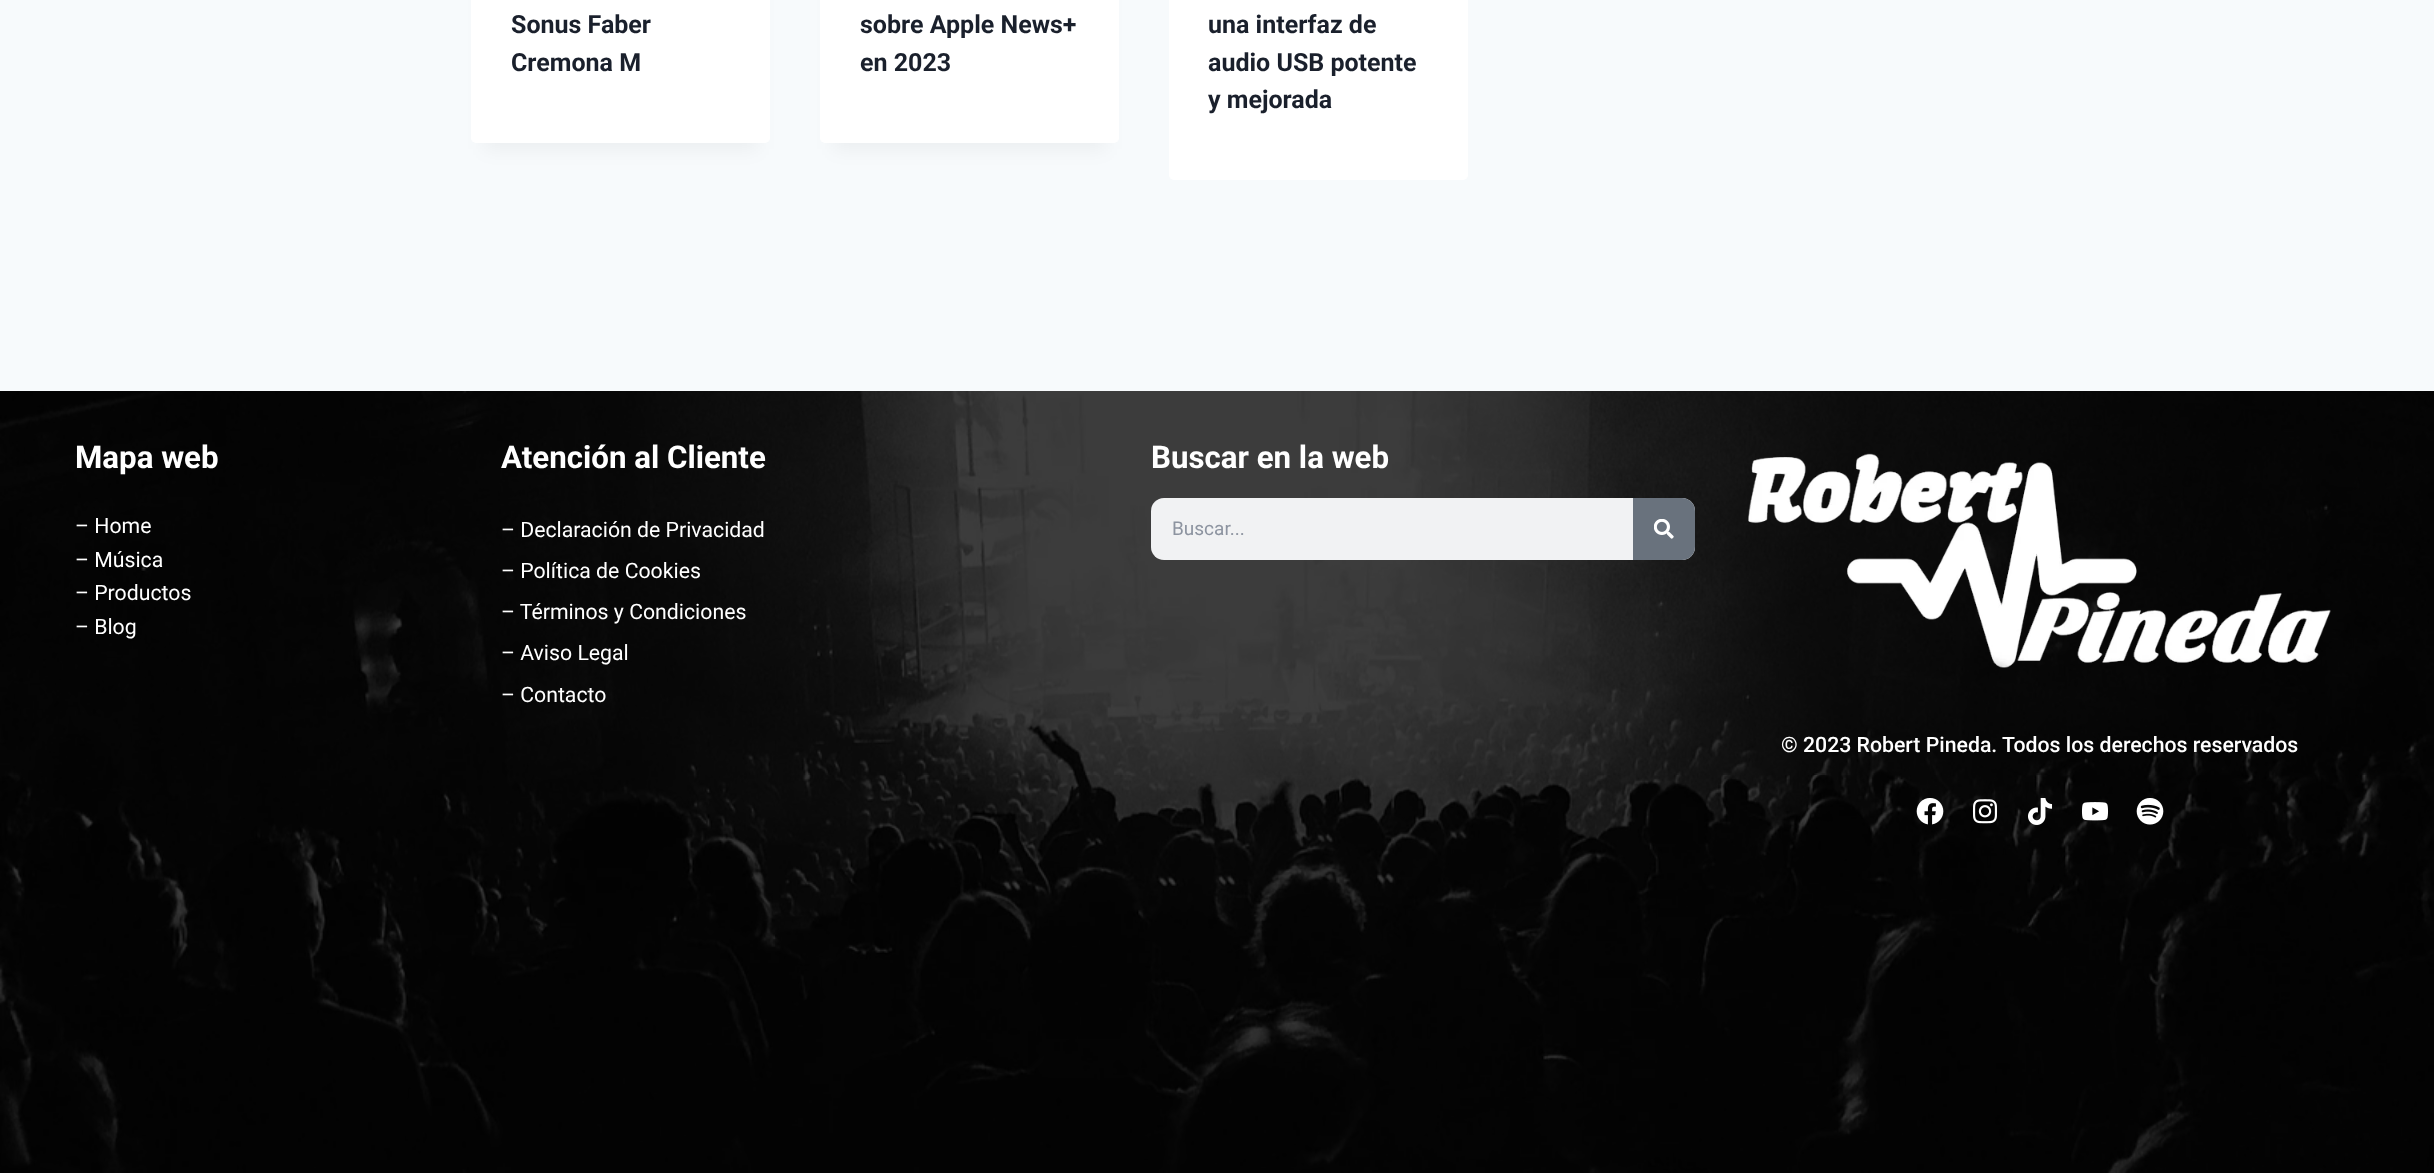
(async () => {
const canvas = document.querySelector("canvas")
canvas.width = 2434
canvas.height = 1173
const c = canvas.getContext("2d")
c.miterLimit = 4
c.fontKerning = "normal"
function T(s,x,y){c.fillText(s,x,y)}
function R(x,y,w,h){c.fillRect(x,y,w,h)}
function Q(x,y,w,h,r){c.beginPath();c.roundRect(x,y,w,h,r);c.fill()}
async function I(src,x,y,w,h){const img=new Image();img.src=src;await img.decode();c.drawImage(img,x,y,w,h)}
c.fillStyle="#f7fafc"
R(0,0,2434,1173)
c.fillStyle="#0000000d"
c.filter="blur(9.5px)"
c.beginPath()
c.rect(484,-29,274,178)
c.fill()
c.filter="none"
c.fillStyle="#fff"
Q(471,-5,299,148,5)
c.font="bold 25px Roboto"
c.fillStyle="#1a202c"
T("Sonus Faber",511,33)
T("Cremona M",511,71)
c.fillStyle="#0000000d"
c.filter="blur(9.5px)"
c.beginPath()
c.rect(833,-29,273,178)
c.fill()
c.filter="none"
c.fillStyle="#fff"
Q(820,-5,299,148,5)
c.fillStyle="#1a202c"
T("sobre Apple News+",860,33)
T("en 2023",860,71)
c.fillStyle="#fff"
Q(1169,-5,299,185,5)
c.fillStyle="#1a202c"
T("una interfaz de",1208,33)
T("audio USB potente",1208,71)
T("y mejorada",1208,108)
c.fillStyle="#000"
R(0,391,2434,782)
await I("1.png",0,391,2434,782)
c.font="bold 31.25px Roboto"
c.fillStyle="#fff"
T("Mapa web",75,468)
c.font="21.25px Roboto"
T("– Home",75,533)
T("– Música",75,567)
T("– Productos",75,600)
T("– Blog",75,634)
c.font="bold 31.25px Roboto"
T("Atención al Cliente",501,468)
c.font="21.25px Roboto"
T("– Declaración de Privacidad",501,537)
T("– Política de Cookies",501,578)
T("– Términos y Condiciones",501,619)
T("– Aviso Legal",501,660)
T("– Contacto",501,702)
c.font="bold 31.25px Roboto"
T("Buscar en la web",1151,468)
c.fillStyle="#f1f2f3"
Q(1151,498,544,62,13)
c.font="19px Roboto"
c.fillStyle="#8d94a0"
T("Buscar...",1172,535)
c.fillStyle="#69727d"
c.beginPath()
c.roundRect(1633,498,62,62,[0,13,13,0])
c.fill()
await I("2.png",1654,519,20,20)
await I("3.png",1748,453,583,215)
c.font="500 21.25px Roboto"
c.fillStyle="#fff"
T("© 2023 Robert Pineda. Todos los derechos reservados",1781,752)
await I("4.png",1916,798,28,27)
await I("5.png",1972,799,26,25)
await I("6.png",2028,798,25,27)
await I("7.png",2081,802,28,19)
await I("8.png",2136,798,28,27)
})()
